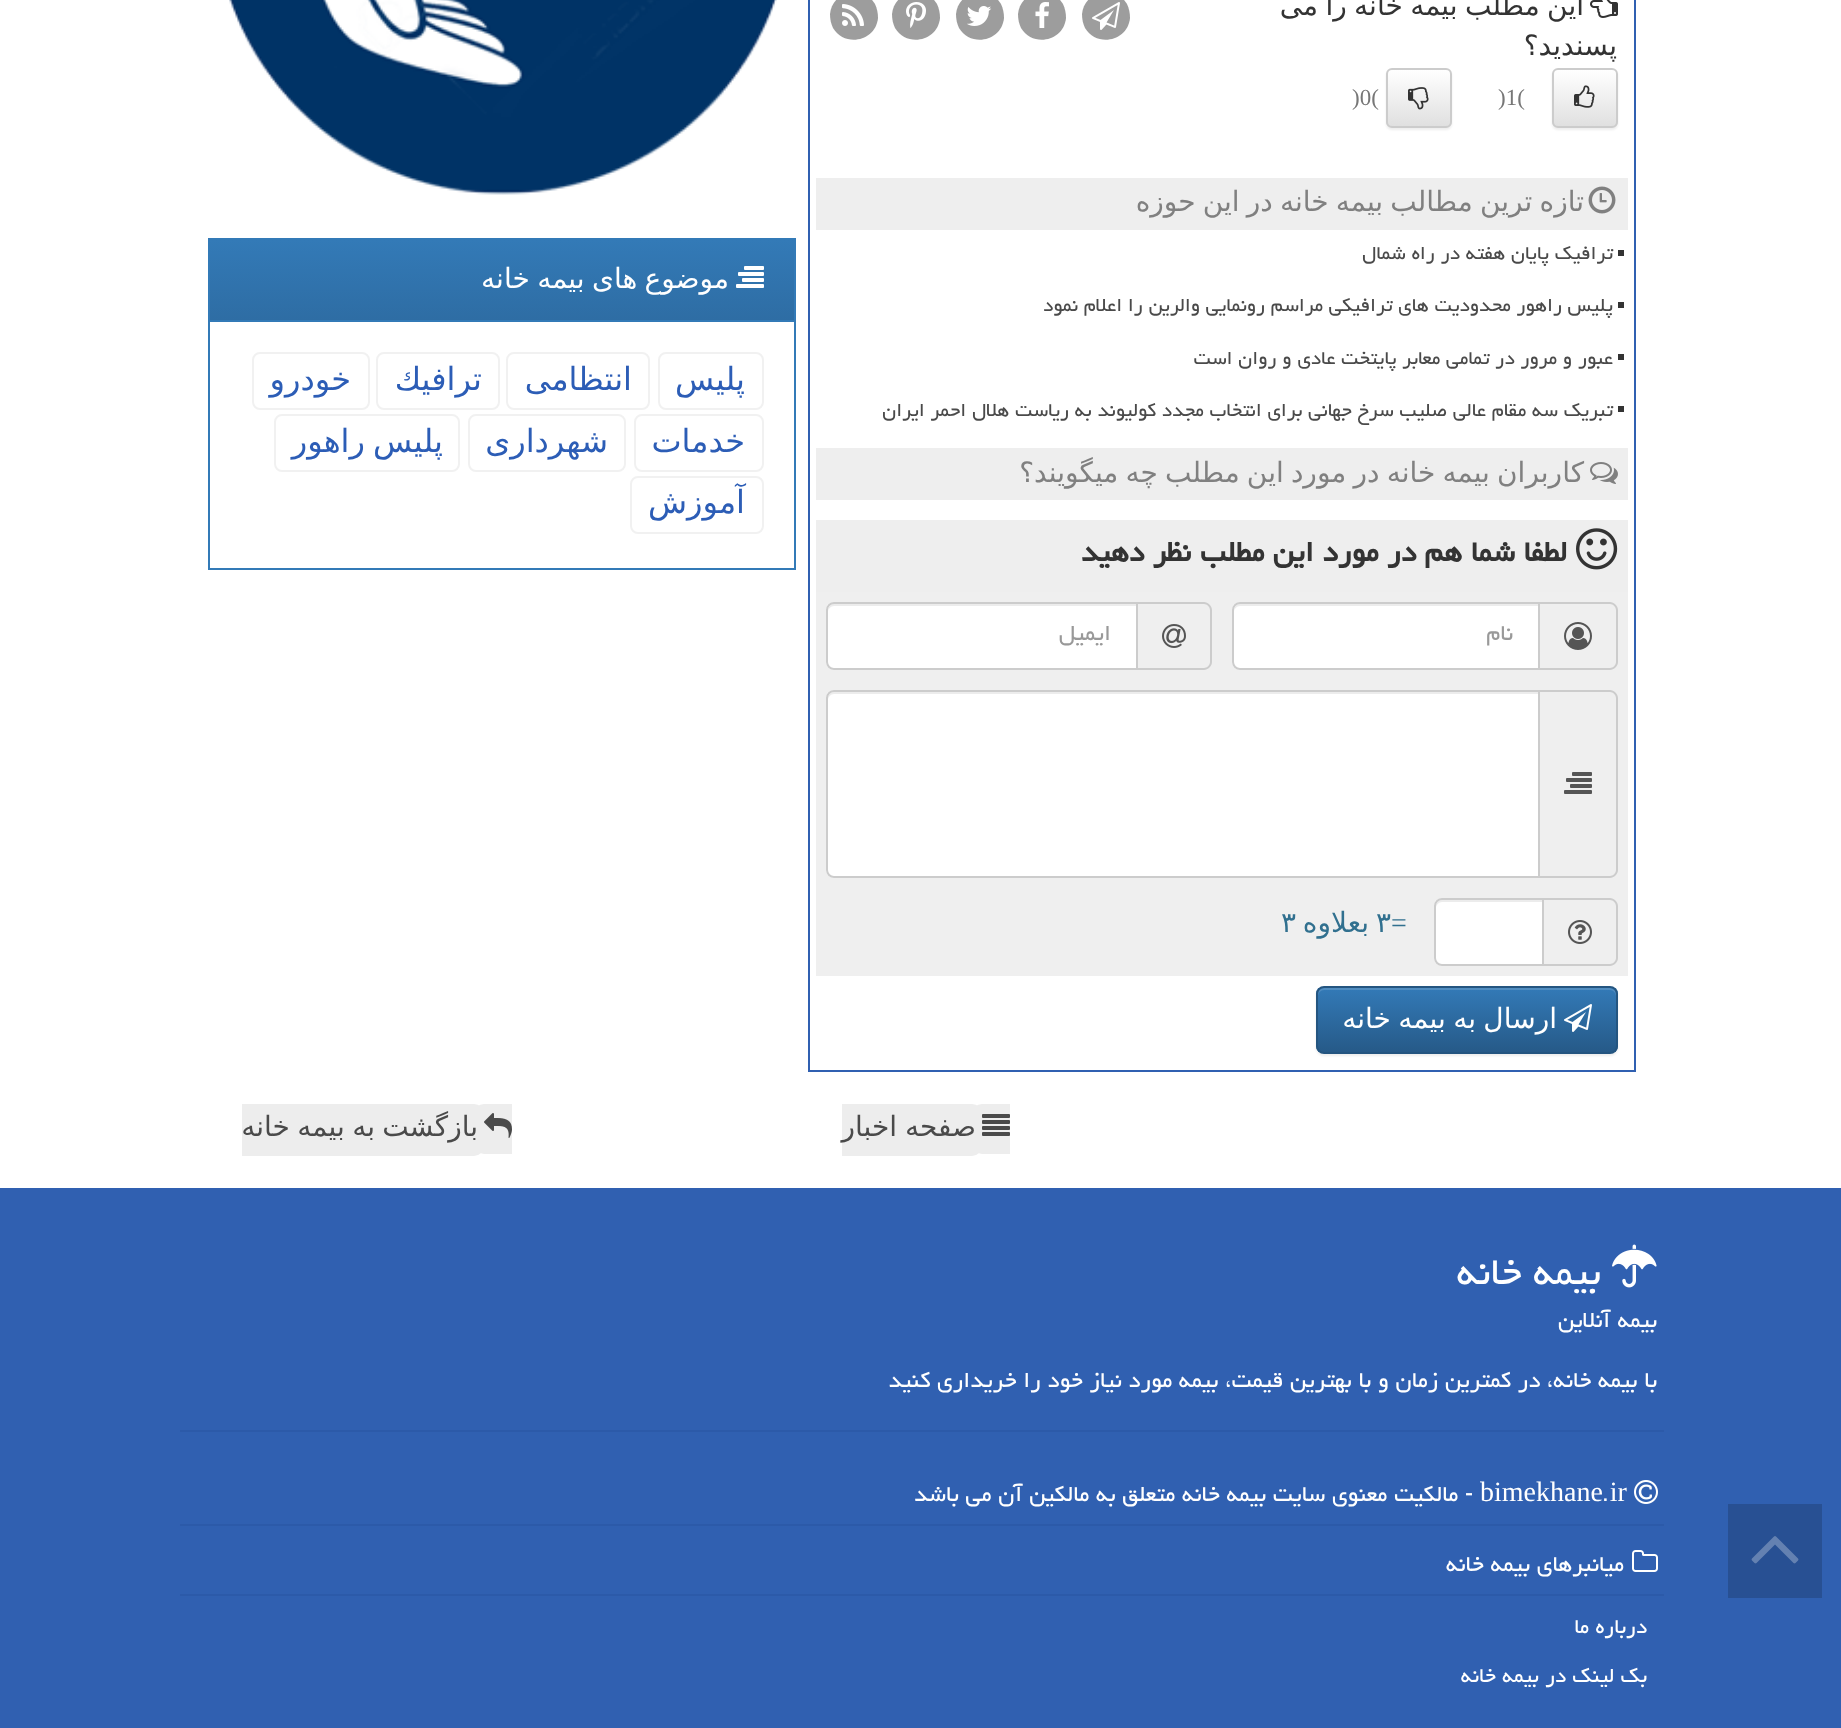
(async () => {
const canvas = document.querySelector("canvas")
canvas.width = 1841
canvas.height = 1728
const c = canvas.getContext("2d")
c.miterLimit = 4
c.fontKerning = "normal"
function T(s,x,y){c.fillText(s,x,y)}
function R(x,y,w,h){c.fillRect(x,y,w,h)}
async function I(src,x,y,w,h){const img=new Image();img.src=src;await img.decode();c.drawImage(img,x,y,w,h)}
let gradient, path
c.fillStyle="#fff"
R(0,0,1841,1728)
c.strokeStyle="#3060b1"
c.lineWidth=2
c.strokeRect(809,-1,826,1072)
await I("1.png",1590,0,28,18)
c.wordSpacing="-1.5px"
c.direction="rtl"
c.font="28px DejaVu Sans"
c.fillStyle="#333"
T("این مطلب بیمه خانه را می",1584,15)
c.wordSpacing="0px"
T("پسندید؟",1617,55)
c.fillStyle="#00000012"
c.filter="blur(1px)"
c.beginPath()
c.roundRect(1552,70,66,60,6)
c.fill()
c.filter="none"
c.save()
c.beginPath()
c.roundRect(1552,68,66,60,6)
c.clip()
gradient = c.createLinearGradient(1585,70,1585,126)
gradient.addColorStop(0,"#fff")
gradient.addColorStop(1,"#e0e0e0")
c.fillStyle = gradient
R(1552,70,66,56)
c.restore()
c.beginPath()
c.roundRect(1553,69,64,58,5)
c.strokeStyle="#ccc"
c.stroke()
await I("2.png",1574,85,21,23)
c.direction="ltr"
c.font="23px Liberation Serif"
c.fillStyle="#777"
T(")1(",1498,105)
c.fillStyle="#00000012"
c.filter="blur(1px)"
c.beginPath()
c.roundRect(1386,70,66,60,6)
c.fill()
c.filter="none"
c.save()
c.beginPath()
c.roundRect(1386,68,66,60,6)
c.clip()
gradient = c.createLinearGradient(1419,70,1419,126)
gradient.addColorStop(0,"#fff")
gradient.addColorStop(1,"#e0e0e0")
c.fillStyle = gradient
R(1386,70,66,56)
c.restore()
c.beginPath()
c.roundRect(1387,69,64,58,5)
c.stroke()
await I("3.png",1408,87,21,23)
c.fillStyle="#777"
T(")0(",1352,105)
c.fillStyle="#9d9d9d"
path = new Path2D("M1127 4c2 4 3 9 3 14c-2 23-33 30-45 10c-2-4-3-9-3-14c2-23 33-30 45-10z")
c.fill(path)
await I("4.png",1092,2,28,28)
path = new Path2D("M1063 4c2 4 3 9 3 14c-2 23-33 30-45 10c-2-4-3-9-3-14c2-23 33-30 45-10z")
c.fill(path)
await I("5.png",1035,2,14,26)
path = new Path2D("M1001 4c2 4 3 9 3 14c-2 23-33 30-45 10c-2-4-3-9-3-14c2-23 33-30 45-10z")
c.fill(path)
await I("6.png",967,6,25,20)
path = new Path2D("M937 4c2 4 3 9 3 14c-2 23-33 30-45 10c-2-4-3-9-3-14c2-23 33-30 45-10z")
c.fill(path)
await I("7.png",906,2,20,26)
path = new Path2D("M875 4c2 4 3 9 3 14c-2 23-33 30-45 10c-2-4-3-9-3-14c2-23 33-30 45-10z")
c.fill(path)
await I("8.png",842,4,22,22)
c.fillStyle="#eee"
R(816,178,812,52)
c.wordSpacing="-1.75px"
c.direction="rtl"
c.font="28px DejaVu Sans"
c.fillStyle="#808080"
T("تازه ترین مطالب بیمه خانه در این حوزه",1584,211)
await I("9.png",1588,186,28,28)
c.fillStyle="#333"
R(1618,250,6,6)
c.wordSpacing="0px"
c.font="24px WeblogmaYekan"
c.fillStyle="#4a4a4a"
T("ترافیک پایان هفته در راه شمال",1613,259)
c.fillStyle="#333"
R(1618,302,6,6)
c.fillStyle="#4a4a4a"
T("پلیس راهور محدودیت های ترافیکی مراسم رونمایی والرین را اعلام نمود",1613,311)
c.fillStyle="#333"
R(1618,354,6,6)
c.fillStyle="#4a4a4a"
T("عبور و مرور در تمامی معابر پایتخت عادی و روان است",1613,364)
c.fillStyle="#333"
R(1618,406,6,6)
c.fillStyle="#4a4a4a"
T("تبریک سه مقام عالی صلیب سرخ جهانی برای انتخاب مجدد کولیوند به ریاست هلال احمر ایران",1613,416)
c.fillStyle="#eee"
R(816,448,812,52)
await I("10.png",1590,462,28,22)
c.wordSpacing="-1.75px"
c.font="28px DejaVu Sans"
c.fillStyle="#808080"
T("کاربران بیمه خانه در مورد این مطلب چه میگویند؟",1584,482)
c.fillStyle="#eee"
R(816,520,812,72)
await I("11.png",1576,528,42,42)
c.wordSpacing="0px"
c.font="bold 36px WeblogmaYekan"
c.fillStyle="#333"
T("لطفا شما هم",1567,561)
T("در مورد این مطلب",1416,561)
T("نظر دهید",1191,561)
c.fillStyle="#efefef"
R(816,592,812,384)
c.fillStyle="#ccc"
path = new Path2D("M1540 602h70c4 0 8 4 8 8v52c0 4-4 8-8 8h-70zm0 2h70c3 0 6 3 6 6v52c0 3-3 6-6 6h-70z")
c.fill(path,"evenodd")
await I("12.png",1564,622,28,28)
c.fillStyle="#fff"
c.beginPath()
c.roundRect(1232,602,308,68,[8,0,0,8])
c.fill()
c.fillStyle="#ececec"
path = new Path2D("M1240 606h298v-2h-299c-4 1-5 5-5 8c0-3 3-6 6-6z")
c.fill(path)
c.beginPath()
c.roundRect(1233,603,306,66,[7,0,0,7])
c.stroke()
c.font="28px WeblogmaYekan"
c.fillStyle="#999"
T("نام",1513,640)
c.fillStyle="#ccc"
path = new Path2D("M1138 602h66c4 0 8 4 8 8v52c0 4-4 8-8 8h-66zm0 2h66c3 0 6 3 6 6v52c0 3-3 6-6 6h-66z")
c.fill(path,"evenodd")
await I("13.png",1162,624,24,24)
c.fillStyle="#fff"
c.beginPath()
c.roundRect(826,602,312,68,[8,0,0,8])
c.fill()
c.fillStyle="#ececec"
path = new Path2D("M834 606h302v-2h-303c-4 1-5 5-5 8c0-3 3-6 6-6z")
c.fill(path)
c.beginPath()
c.roundRect(827,603,310,66,[7,0,0,7])
c.stroke()
c.fillStyle="#999"
T("ایمیل",1111,640)
c.fillStyle="#ccc"
path = new Path2D("M1540 690h70c4 0 8 4 8 8v172c0 4-4 8-8 8h-70zm0 2h70c3 0 6 3 6 6v172c0 3-3 6-6 6h-70z")
c.fill(path,"evenodd")
await I("14.png",1564,772,28,22)
c.fillStyle="#fff"
c.beginPath()
c.roundRect(826,690,714,188,[8,0,0,8])
c.fill()
c.fillStyle="#ececec"
path = new Path2D("M834 694h704v-2h-704c-3 0-6 3-6 6v2c0-3 3-6 6-6z")
c.fill(path)
c.beginPath()
c.roundRect(827,691,712,186,[7,0,0,7])
c.stroke()
c.fillStyle="#ccc"
path = new Path2D("M1544 898h66c4 0 8 4 8 8v52c0 4-4 8-8 8h-66zm0 2h66c3 0 6 3 6 6v52c0 3-3 6-6 6h-66z")
c.fill(path,"evenodd")
await I("15.png",1568,920,24,24)
c.fillStyle="#fff"
c.beginPath()
c.roundRect(1434,898,110,68,[8,0,0,8])
c.fill()
c.fillStyle="#ececec"
path = new Path2D("M1442 902h100v-2h-100c-3 0-6 3-6 6v2c0-3 3-6 6-6z")
c.fill(path)
c.beginPath()
c.roundRect(1435,899,108,66,[7,0,0,7])
c.stroke()
c.direction="ltr"
c.font="28px Liberation Serif"
c.fillStyle="#31708f"
T("=",1391,932)
c.font="28px DejaVu Sans"
T("۳",1376,932)
c.direction="rtl"
T("بعلاوه",1369,932)
c.direction="ltr"
T("۳",1281,932)
c.fillStyle="#00000012"
c.filter="blur(1px)"
c.beginPath()
c.roundRect(1316,988,302,68,8)
c.fill()
c.filter="none"
c.save()
c.beginPath()
c.roundRect(1316,986,302,68,8)
c.clip()
gradient = c.createLinearGradient(1467,988,1467,1052)
gradient.addColorStop(0,"#337ab7")
gradient.addColorStop(1,"#265a88")
c.fillStyle = gradient
R(1316,988,302,64)
c.restore()
c.fillStyle="#ffffff26"
path = new Path2D("M1324 990h286c3 0 6 3 6 6v-2c0-3-3-6-6-6h-286c-3 0-6 3-6 6v2c0-3 3-6 6-6z")
c.fill(path)
c.beginPath()
c.roundRect(1317,987,300,66,7)
c.strokeStyle="#245580"
c.stroke()
await I("16.png",1564,1004,28,28)
c.wordSpacing="-1.5px"
c.direction="rtl"
c.fillStyle="#fff"
T("ارسال به بیمه خانه",1557,1028)
await I("17.png",229,0,548,195)
c.strokeStyle="#337ab7"
c.strokeRect(209,239,586,330)
c.fillStyle="#337ab7"
R(210,320,584,2)
gradient = c.createLinearGradient(502,240,502,320)
gradient.addColorStop(0,"#337ab7")
gradient.addColorStop(1,"#2e6da4")
c.fillStyle = gradient
R(210,240,584,80)
await I("18.png",736,266,28,22)
c.fillStyle="#fff"
T("موضوع های بیمه خانه",729,288)
c.beginPath()
c.roundRect(659,353,104,56,7)
c.strokeStyle="#f1f1f1"
c.stroke()
c.wordSpacing="0px"
c.font="32px DejaVu Sans"
c.fillStyle="#2c5db6"
T("پلیس",745,390)
c.beginPath()
c.roundRect(507,353,142,56,7)
c.stroke()
T("انتظامی",632,390)
c.beginPath()
c.roundRect(377,353,122,56,7)
c.stroke()
T("ترافیك",482,390)
c.beginPath()
c.roundRect(253,353,116,56,7)
c.stroke()
T("خودرو",351,390)
c.beginPath()
c.roundRect(635,415,128,56,7)
c.stroke()
T("خدمات",745,452)
c.beginPath()
c.roundRect(469,415,156,56,7)
c.stroke()
T("شهرداری",608,452)
c.beginPath()
c.roundRect(275,415,184,56,7)
c.stroke()
c.wordSpacing="-2px"
T("پلیس راهور",443,452)
c.beginPath()
c.roundRect(631,477,132,56,7)
c.stroke()
c.wordSpacing="0px"
T("آموزش",745,513)
c.fillStyle="#ededed"
c.beginPath()
c.roundRect(972,1104,38,50,[10,0,0,10])
c.fill()
c.beginPath()
c.roundRect(842,1104,140,52,[0,10,10,0])
c.fill()
await I("19.png",982,1114,28,22)
c.wordSpacing="-1px"
c.font="28px DejaVu Sans"
c.fillStyle="#4a4a4a"
T("صفحه اخبار",976,1136)
c.fillStyle="#ededed"
c.beginPath()
c.roundRect(474,1104,38,50,[10,0,0,10])
c.fill()
c.beginPath()
c.roundRect(242,1104,242,52,[0,10,10,0])
c.fill()
await I("20.png",484,1113,28,25)
c.wordSpacing="-1.5px"
c.fillStyle="#4a4a4a"
T("بازگشت به بیمه خانه",478,1136)
c.fillStyle="#3060b1"
R(0,1188,1841,540)
c.fillStyle="#285093"
R(1728,1504,94,94)
await I("21.png",1751,1536,48,28)
c.fillStyle="#2c5aa9"
R(180,1430,1484,2)
await I("22.png",1612,1244,45,44)
c.wordSpacing="0px"
c.font="48px WeblogmaYekan"
c.fillStyle="#fff"
T("بیمه خانه",1601,1284)
c.font="28px WeblogmaYekan"
T("بیمه آنلاین",1657,1327)
T("با بیمه خانه، در کمترین زمان و با بهترین قیمت، بیمه مورد نیاز خود را خریداری کنید",1657,1387)
c.fillStyle="#2c5aa9"
R(180,1524,1484,2)
await I("23.png",1634,1480,24,24)
c.direction="ltr"
c.font="28px Liberation Serif"
c.fillStyle="#fff"
T("bimekhane ir",1480,1501)
c.direction="rtl"
c.font="28px WeblogmaYekan"
T("- مالکیت معنوی سایت بیمه خانه متعلق به مالکین آن می باشد",1473,1501)
c.direction="ltr"
T(".",1602,1501)
c.fillStyle="#2c5aa9"
R(180,1594,1484,2)
await I("24.png",1632,1550,26,22)
c.direction="rtl"
c.fillStyle="#fff"
T("میانبرهای بیمه خانه",1624,1571)
c.font="26px WeblogmaYekan"
T("درباره ما",1647,1633)
T("بک لینک در بیمه خانه",1647,1682)
})()
